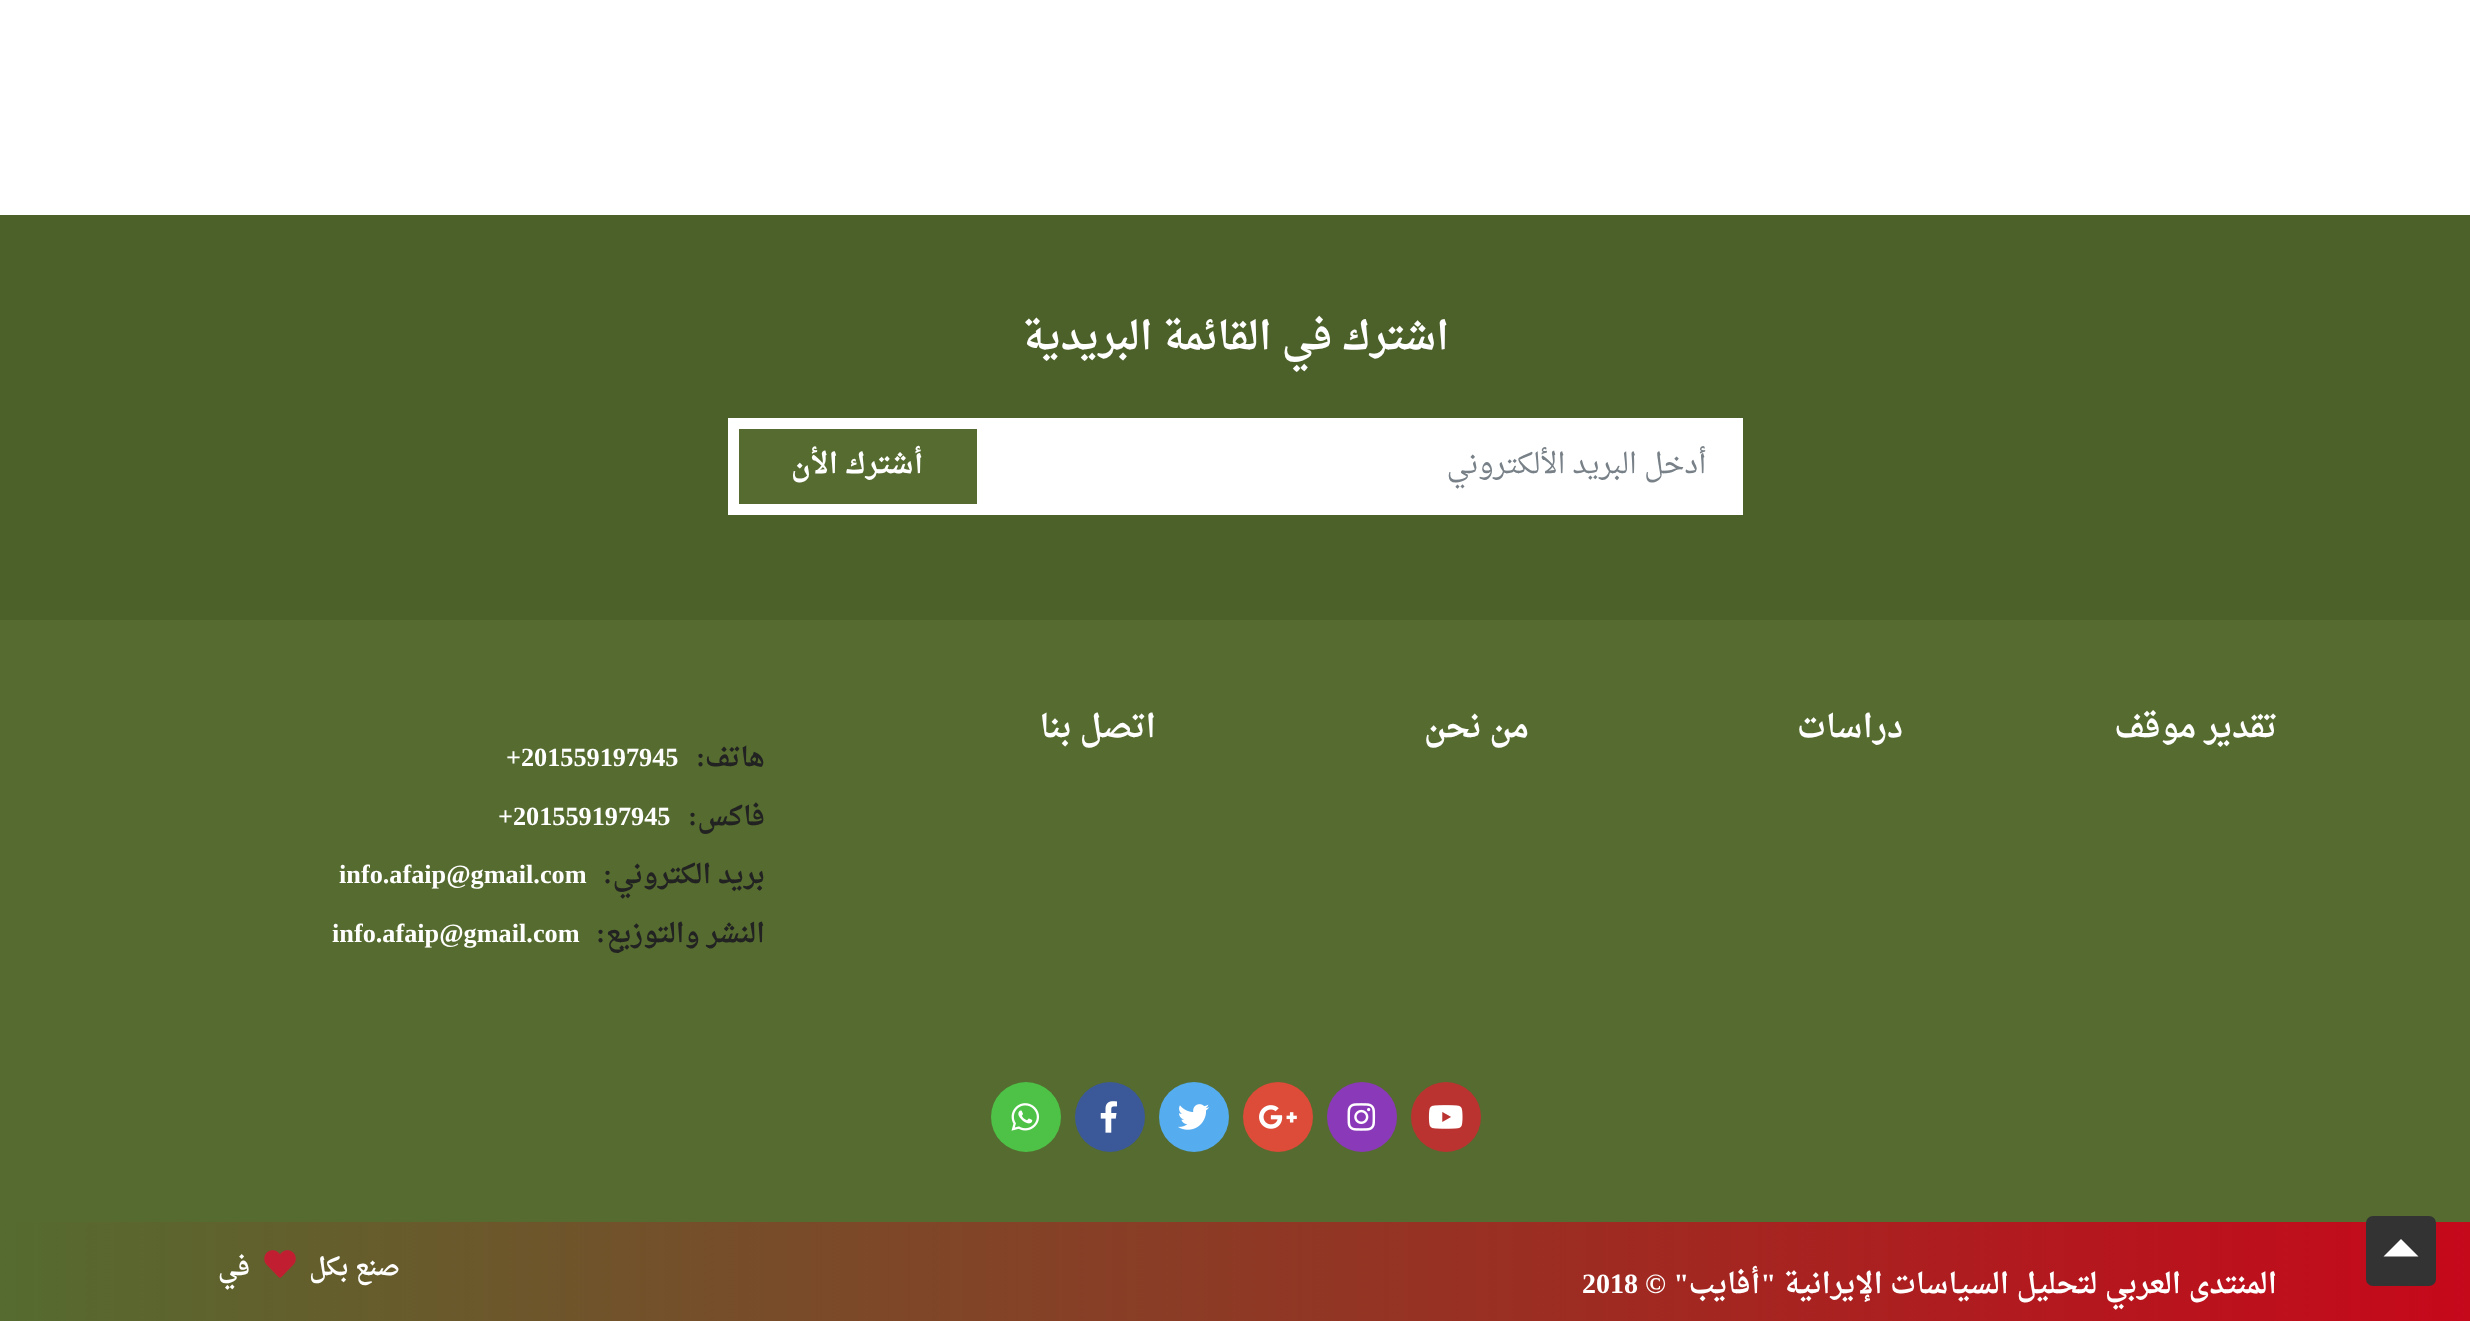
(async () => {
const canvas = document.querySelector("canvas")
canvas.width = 2470
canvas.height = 1321
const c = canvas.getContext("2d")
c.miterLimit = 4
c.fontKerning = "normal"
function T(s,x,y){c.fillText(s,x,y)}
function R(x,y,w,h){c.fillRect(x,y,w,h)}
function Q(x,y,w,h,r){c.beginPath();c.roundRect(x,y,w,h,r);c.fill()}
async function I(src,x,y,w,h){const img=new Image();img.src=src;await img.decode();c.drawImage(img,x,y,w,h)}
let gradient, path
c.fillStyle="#fff"
R(0,0,2470,1321)
c.fillStyle="#556b2f"
R(0,620,2470,602)
gradient = c.createLinearGradient(0,1279,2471,1279)
gradient.addColorStop(0,"#556b2f")
gradient.addColorStop(1,"#c6081b")
c.fillStyle = gradient
R(0,1222,2470,99)
c.fillStyle="#333"
Q(2366,1216,70,70,7)
c.fillStyle="#fff"
path = new Path2D("M2418.5 1256.5h-35l17.5-17.5z")
c.fill(path)
c.fillStyle="#4c602a"
R(0,215,2470,405)
c.direction="rtl"
c.font="bold 38.5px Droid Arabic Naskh"
c.fillStyle="#fff"
T("اشترك في القائمة البريدية",1449,349)
R(728,418,1015,97)
c.font="28px Droid Arabic Naskh"
c.fillStyle="#788188"
T("أدخل البريد الألكتروني",1706,473)
c.fillStyle="#556b2f"
R(739,429,238,75)
c.font="bold 28px Droid Arabic Naskh"
c.fillStyle="#fff"
T("أشترك الأن",923,473)
c.font="bold 31.5px Droid Arabic Naskh"
T("تقدير موقف",2277,737)
T("دراسات",1903,737)
T("من نحن",1529,737)
T("اتصل بنا",1156,737)
c.font="bold 26.25px Droid Arabic Naskh"
c.fillStyle="#222"
T("هاتف",765,766)
c.font="bold 26.25px Liberation Serif"
T(":",705,766)
c.direction="ltr"
c.fillStyle="#fff"
T("+201559197945",506,766)
c.direction="rtl"
c.font="bold 26.25px Droid Arabic Naskh"
c.fillStyle="#222"
T("فاكس",765,825)
c.font="bold 26.25px Liberation Serif"
T(":",697,825)
c.direction="ltr"
c.fillStyle="#fff"
T("+201559197945",498,825)
c.direction="rtl"
c.font="bold 26.25px Droid Arabic Naskh"
c.fillStyle="#222"
T("بريد الكتروني",765,883)
c.font="bold 26.25px Liberation Serif"
T(":",612,883)
c.direction="ltr"
c.fillStyle="#fff"
T("info.afaip@gmail.com",339,883)
c.direction="rtl"
c.font="bold 26.25px Droid Arabic Naskh"
c.fillStyle="#222"
T("النشر والتوزيع",765,942)
c.font="bold 26.25px Liberation Serif"
T(":",605,942)
c.direction="ltr"
c.fillStyle="#fff"
T("info.afaip@gmail.com",332,942)
c.fillStyle="#bb3330"
c.beginPath()
c.arc(1446,1117,35,0,7)
c.fill()
await I("1.png",1428,1105,35,24)
c.fillStyle="#8a3ab9"
c.beginPath()
c.arc(1362,1117,35,0,7)
c.fill()
await I("2.png",1347,1103,29,28)
c.fillStyle="#dd4b39"
c.beginPath()
c.arc(1278,1117,35,0,7)
c.fill()
await I("3.png",1259,1105,38,24)
c.fillStyle="#55acee"
c.beginPath()
c.arc(1194,1117,35,0,7)
c.fill()
await I("4.png",1178,1104,32,26)
c.fillStyle="#3b5998"
c.beginPath()
c.arc(1110,1117,35,0,7)
c.fill()
await I("5.png",1100,1101,17,32)
c.fillStyle="#4dc247"
c.beginPath()
c.arc(1026,1117,35,0,7)
c.fill()
await I("6.png",1011,1103,29,28)
c.direction="rtl"
c.font="bold 28px Droid Arabic Naskh"
c.fillStyle="#fff"
T("المنتدى العربي لتحليل السياسات الإيرانية",2277,1293)
c.font="bold 28px Liberation Serif"
T("\"",1776,1293)
c.font="bold 28px Droid Arabic Naskh"
T("أفايب",1760,1293)
c.font="bold 28px Liberation Serif"
T("\"",1689,1293)
T("©",1666,1293)
c.direction="ltr"
T("2018",1582,1293)
c.direction="rtl"
c.font="bold 24.5px Droid Arabic Naskh"
T("صنع بكل",400,1275)
await I("7.png",264,1250,32,28)
T("في",250,1275)
})()
